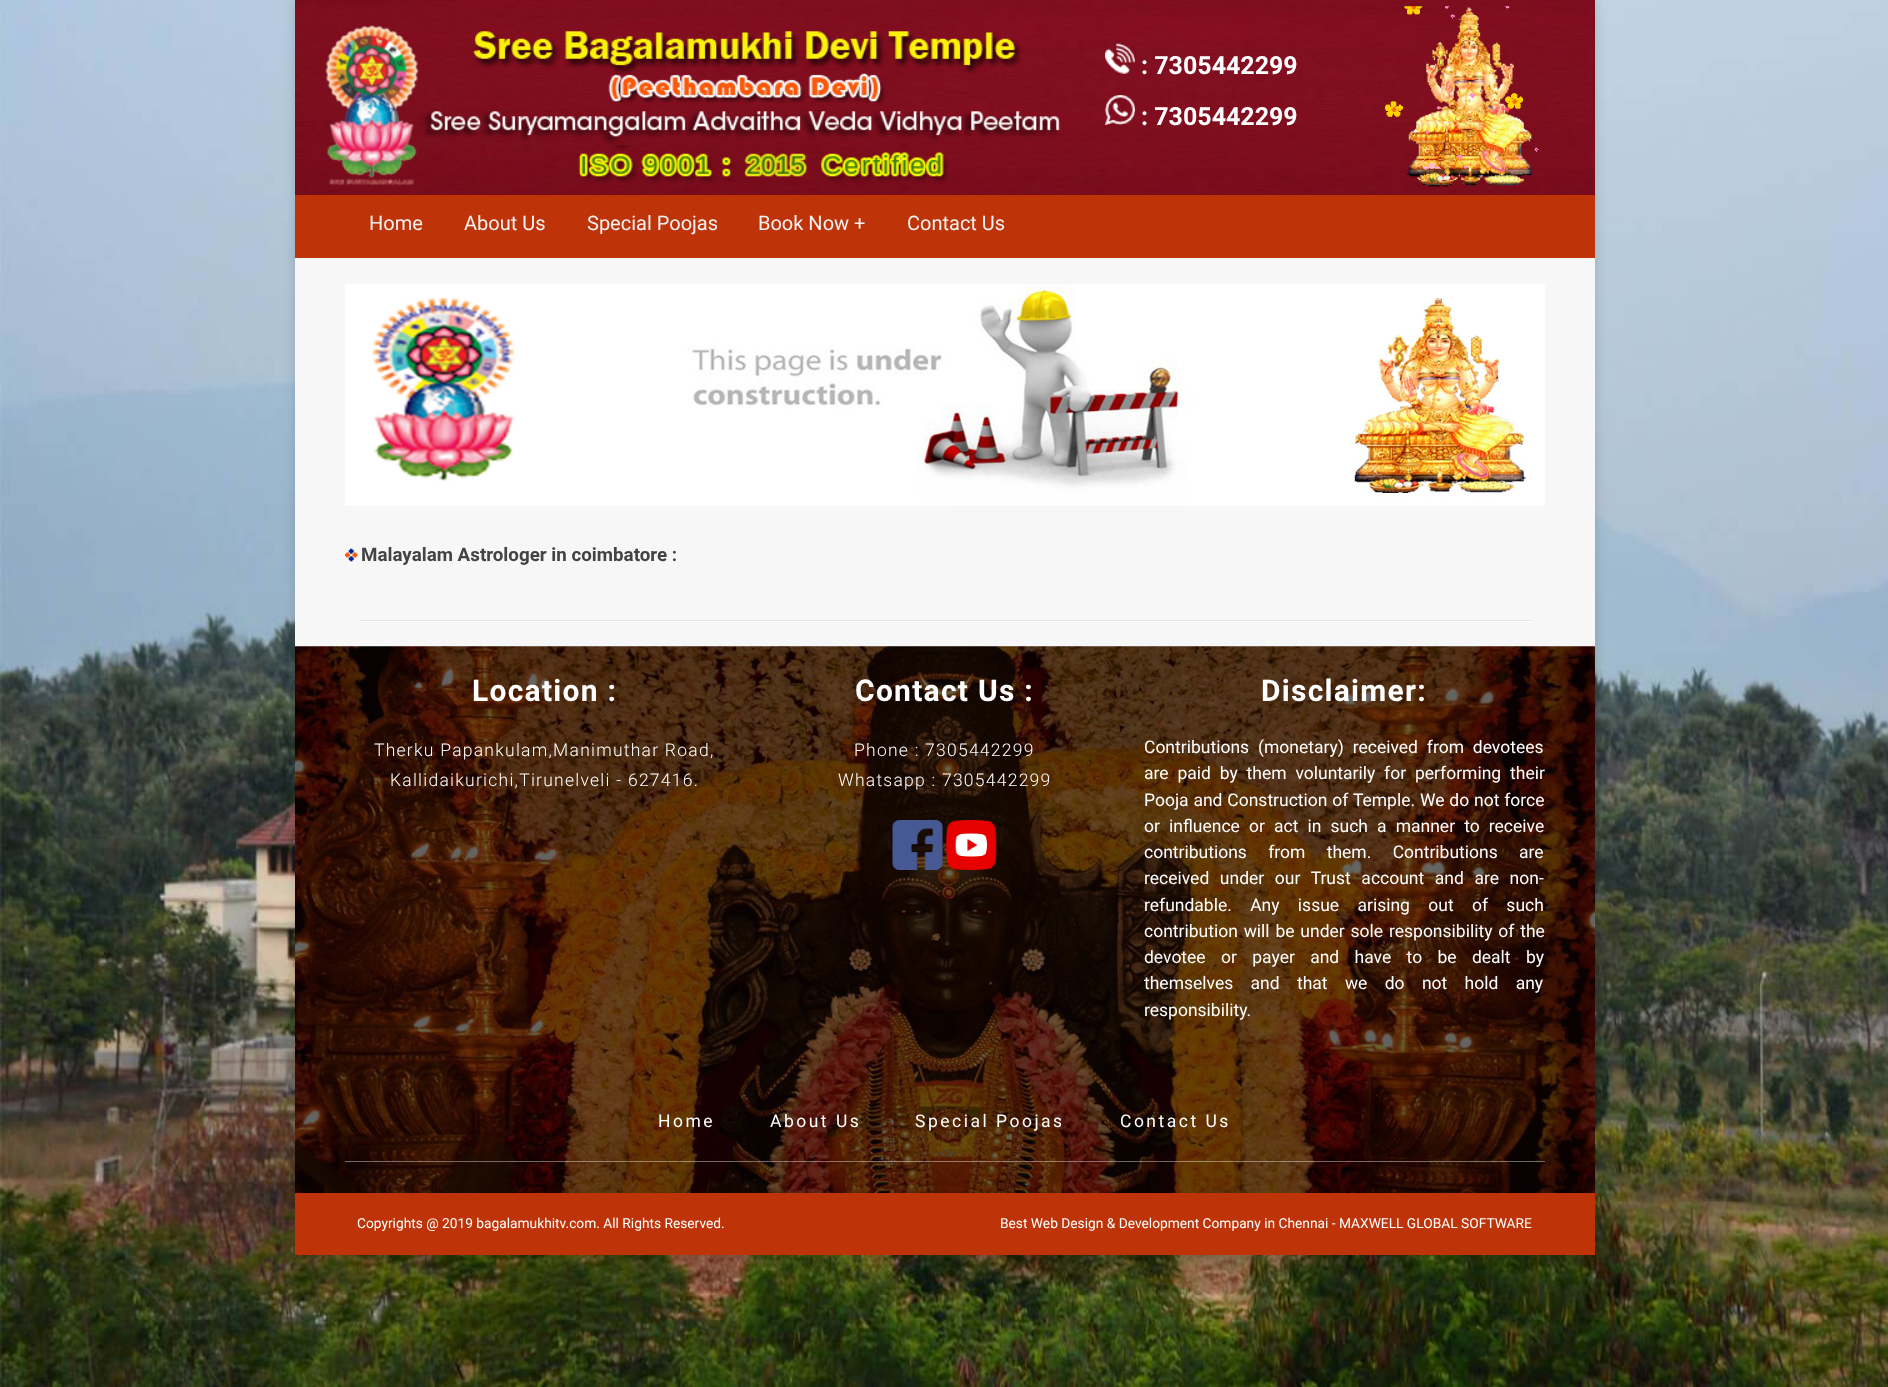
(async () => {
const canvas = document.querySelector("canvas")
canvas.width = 1888
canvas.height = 1387
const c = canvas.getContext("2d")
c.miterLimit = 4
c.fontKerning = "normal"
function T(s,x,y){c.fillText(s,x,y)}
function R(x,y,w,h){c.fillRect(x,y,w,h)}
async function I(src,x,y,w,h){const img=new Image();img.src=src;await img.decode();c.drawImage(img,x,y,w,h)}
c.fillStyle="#fff"
R(0,0,1888,1387)
await I("1.png",0,0,1888,1387)
c.fillStyle="#00000026"
c.filter="blur(6px)"
c.beginPath()
c.rect(295,0,1300,1255)
c.fill()
c.filter="none"
await I("2.png",295,0,1300,195)
await I("3.png",325,25,736,161)
await I("4.png",1105,43,30,31)
c.font="bold 25px Roboto"
c.fillStyle="#fff"
T(": 7305442299",1141,74)
await I("5.png",1105,95,30,30)
T(": 7305442299",1141,125)
await I("7.png",1407,7,125,180)
await I("6.png",1385,6,154,163)
c.fillStyle="#be3408"
R(295,195,1300,63)
c.font="20px Roboto"
c.fillStyle="#f1f1f1"
T("Home",369,230)
T("About Us",464,230)
T("Special Poojas",587,230)
T("Book Now +",758,230)
T("Contact Us",907,230)
c.fillStyle="#f7f7f7"
R(295,258,1300,389)
await I("8.png",345,284,1200,222)
await I("9.png",345,548,13,14)
c.font="bold 18.75px Roboto"
c.fillStyle="#444"
T("Malayalam Astrologer in coimbatore :",361,561)
c.fillStyle="#fff"
R(358,621,1175,1)
c.fillStyle="#e8e8e8"
R(358,620,1175,1)
await I("10.png",295,646,1300,547)
c.letterSpacing="1.25px"
c.font="bold 30px Roboto"
c.fillStyle="#fff"
T("Location :",472,701)
c.font="300 17.5px Roboto"
T("Therku Papankulam,Manimuthar Road,",374,756)
T("Kallidaikurichi,Tirunelveli - 627416.",390,786)
c.font="bold 30px Roboto"
T("Contact Us :",855,701)
c.font="300 17.5px Roboto"
T("Phone : 7305442299",854,756)
T("Whatsapp : 7305442299",838,786)
await I("11.png",892,820,51,50)
await I("12.png",946,820,51,50)
c.font="bold 30px Roboto"
T("Disclaimer:",1261,701)
c.letterSpacing="0px"
c.wordSpacing="4.5px"
c.font="17.5px Roboto"
T("Contributions (monetary) received from devotees",1144,753)
T("are paid by them voluntarily for performing their",1144,779)
c.wordSpacing="0.5px"
T("Pooja and Construction of Temple. We do not force",1144,806)
c.wordSpacing="4.75px"
T("or influence or act in such a manner to receive",1144,832)
c.wordSpacing="17px"
T("contributions from them. Contributions are",1144,858)
c.wordSpacing="6.25px"
T("received under our Trust account and are non-",1144,884)
c.wordSpacing="14px"
T("refundable. Any issue arising out of such",1144,911)
c.wordSpacing="1.5px"
T("contribution will be under sole responsibility of the",1144,937)
c.wordSpacing="11px"
T("devotee or payer and have to be dealt by",1144,963)
c.wordSpacing="13px"
T("themselves and that we do not hold any",1144,989)
c.wordSpacing="0px"
T("responsibility.",1144,1016)
c.fillStyle="#ffffff66"
R(345,1161,1200,1)
c.letterSpacing="2.5px"
c.fillStyle="#fff"
T("Home",658,1127)
T("About Us",770,1127)
T("Special Poojas",915,1127)
T("Contact Us",1120,1127)
c.letterSpacing="0px"
c.fillStyle="#444"
T("-->",935,1159)
c.fillStyle="#be3408"
R(295,1193,1300,62)
c.font="13.75px Roboto"
c.fillStyle="#fff"
T("Copyrights @ 2019 bagalamukhitv.com. All Rights Reserved.",357,1228)
T("Best Web Design & Development Company in Chennai - MAXWELL GLOBAL SOFTWARE",1000,1228)
})()
